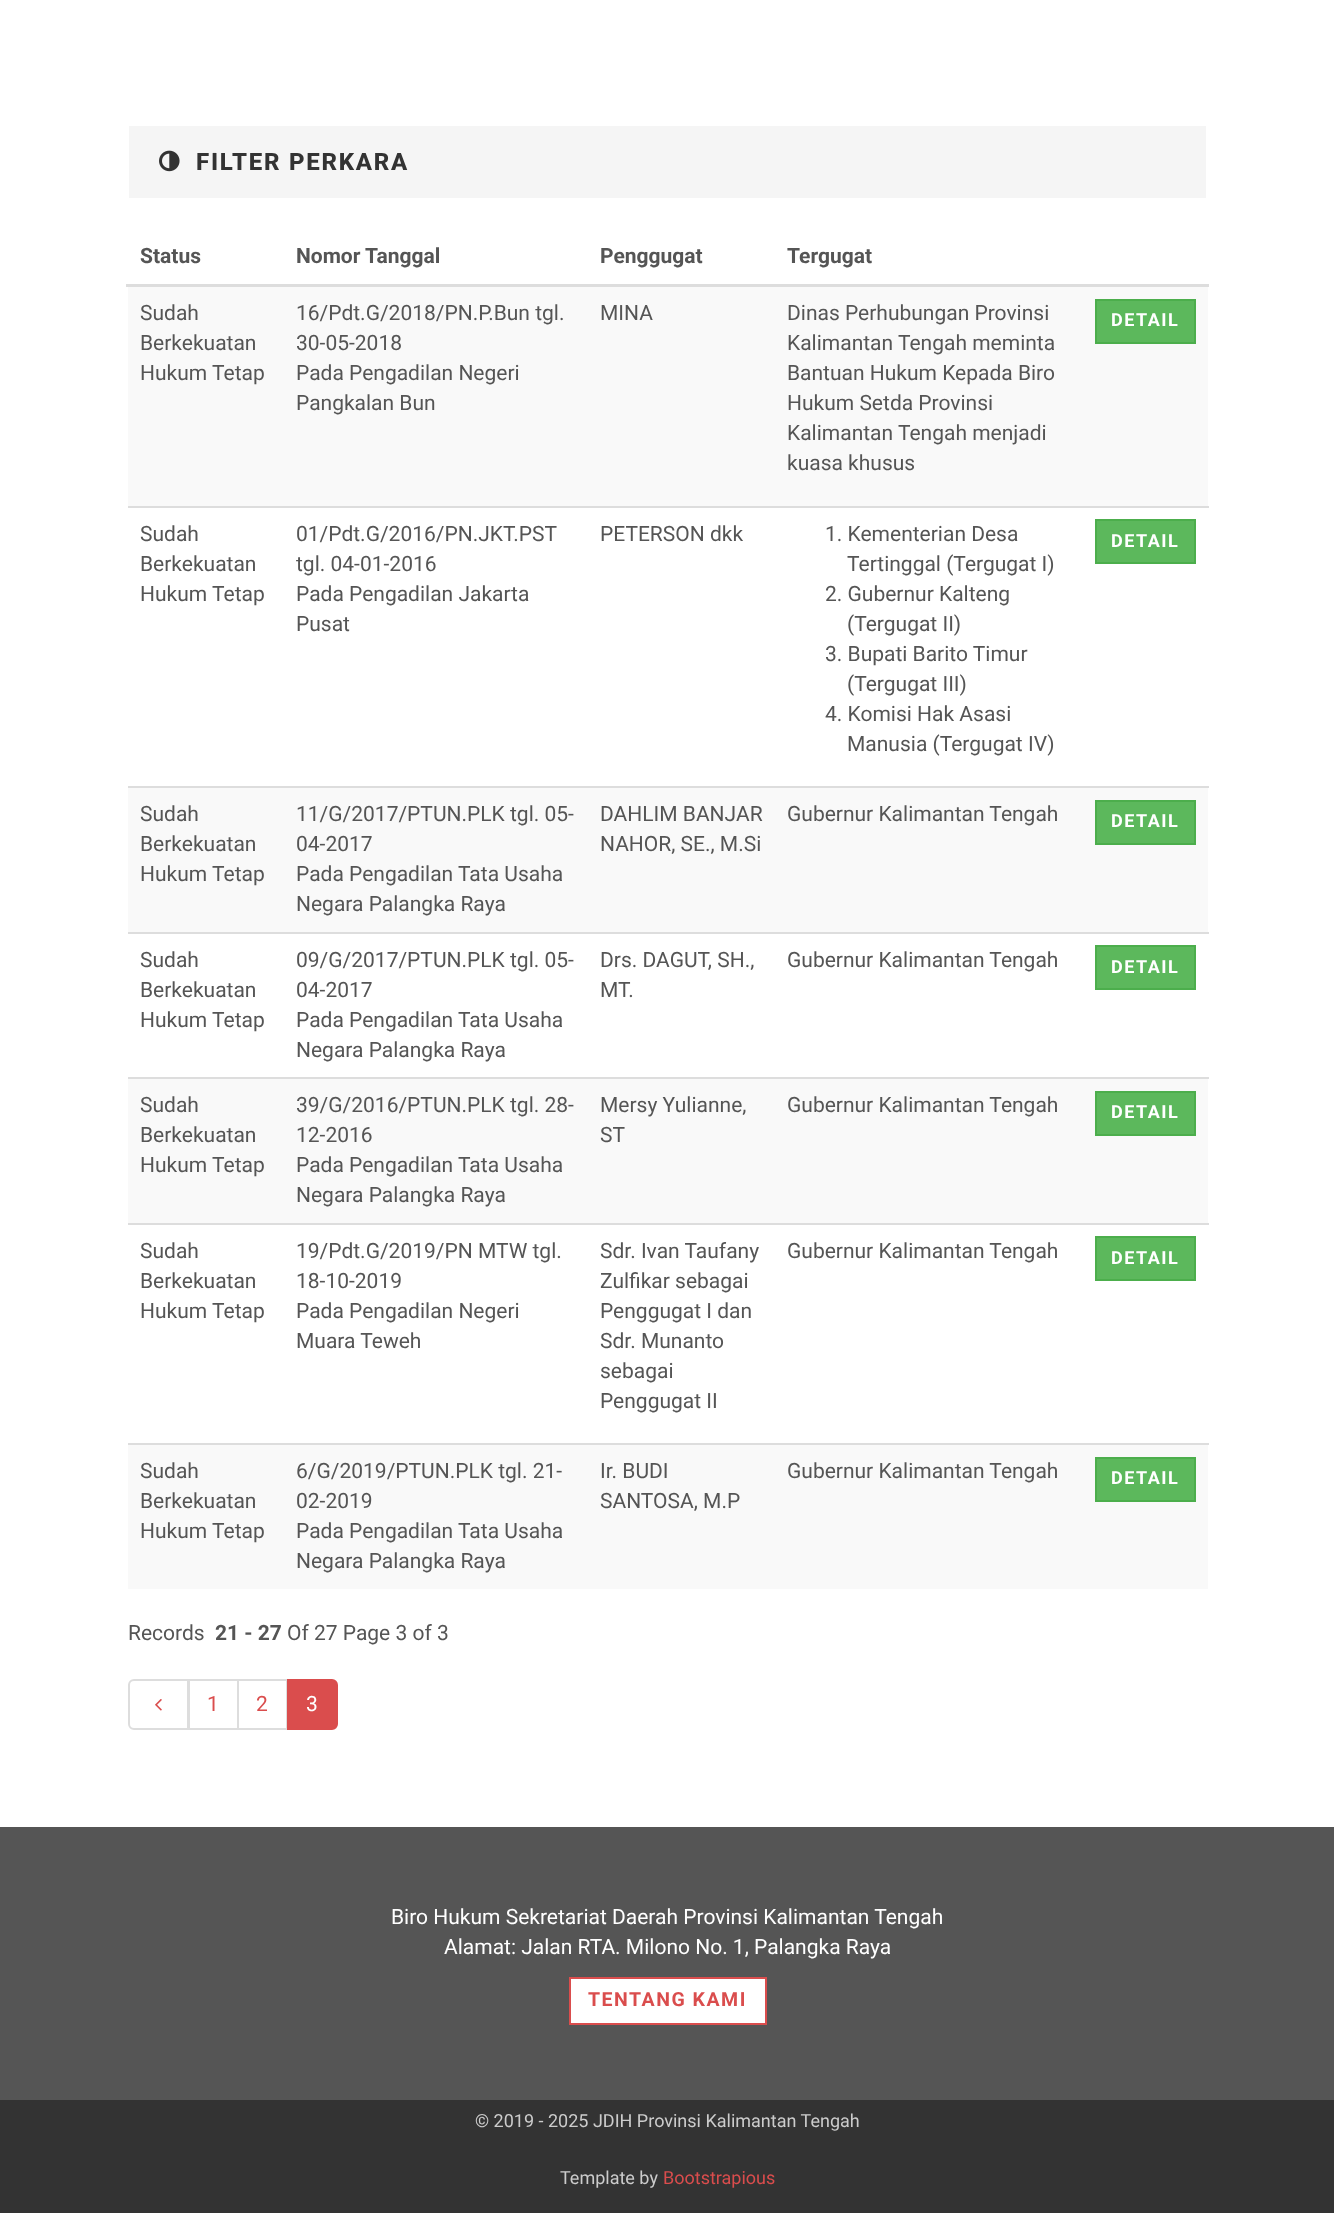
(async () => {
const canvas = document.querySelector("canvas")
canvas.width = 1334
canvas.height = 2213
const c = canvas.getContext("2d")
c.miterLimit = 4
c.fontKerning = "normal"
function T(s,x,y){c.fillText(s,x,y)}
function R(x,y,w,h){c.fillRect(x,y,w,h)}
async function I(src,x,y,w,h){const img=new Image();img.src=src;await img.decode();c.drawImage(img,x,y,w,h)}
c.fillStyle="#fff"
R(0,0,1334,2213)
c.fillStyle="#f5f5f5"
R(129,126,1077,72)
await I("1.png",159,150,21,22)
c.letterSpacing="1.75px"
c.font="800 24px Roboto"
c.fillStyle="#333"
T("FILTER PERKARA",196,170)
c.letterSpacing="0px"
c.font="bold 21px Roboto"
c.fillStyle="#555"
T("Status",140,263)
T("Nomor Tanggal",296,263)
T("Penggugat",600,263)
T("Tergugat",787,263)
c.fillStyle="#ddd"
R(126,284,1083,3)
c.fillStyle="#f9f9f9"
R(128,287,1080,219)
c.font="21px Roboto"
c.fillStyle="#555"
T("Sudah",140,320)
T("Berkekuatan",140,350)
T("Hukum Tetap",140,380)
T("16/Pdt.G/2018/PN.P.Bun tgl.",296,320)
T("30-05-2018",296,350)
T("Pada Pengadilan Negeri",296,380)
T("Pangkalan Bun",296,410)
T("MINA",600,320)
T("Dinas Perhubungan Provinsi",787,320)
T("Kalimantan Tengah meminta",787,350)
T("Bantuan Hukum Kepada Biro",787,380)
T("Hukum Setda Provinsi",787,410)
T("Kalimantan Tengah menjadi",787,440)
T("kuasa khusus",787,470)
c.fillStyle="#5cb85c"
c.beginPath()
c.rect(1096,300,99,43)
c.fill()
c.strokeStyle="#4cae4c"
c.lineWidth=2
c.stroke()
c.letterSpacing="1.5px"
c.font="bold 18px Roboto"
c.fillStyle="#fff"
T("DETAIL",1111,326)
c.letterSpacing="0px"
c.font="21px Roboto"
c.fillStyle="#555"
T("Sudah",140,541)
T("Berkekuatan",140,571)
T("Hukum Tetap",140,601)
T("01/Pdt.G/2016/PN.JKT.PST",296,541)
T("tgl. 04-01-2016",296,571)
T("Pada Pengadilan Jakarta",296,601)
T("Pusat",296,631)
T("PETERSON dkk",600,541)
T("1. Kementerian Desa",825,541)
T("Tertinggal (Tergugat I)",847,571)
T("2. Gubernur Kalteng",825,601)
T("(Tergugat II)",847,631)
T("3. Bupati Barito Timur",825,661)
T("(Tergugat III)",847,691)
T("4. Komisi Hak Asasi",825,721)
T("Manusia (Tergugat IV)",847,751)
c.fillStyle="#ddd"
R(128,506,1081,2)
c.fillStyle="#5cb85c"
c.beginPath()
c.rect(1096,520,99,43)
c.fill()
c.stroke()
c.letterSpacing="1.5px"
c.font="bold 18px Roboto"
c.fillStyle="#fff"
T("DETAIL",1111,547)
c.fillStyle="#f9f9f9"
R(128,788,1080,144)
c.letterSpacing="0px"
c.font="21px Roboto"
c.fillStyle="#555"
T("Sudah",140,821)
T("Berkekuatan",140,851)
T("Hukum Tetap",140,881)
T("11/G/2017/PTUN.PLK tgl. 05-",296,821)
T("04-2017",296,851)
T("Pada Pengadilan Tata Usaha",296,881)
T("Negara Palangka Raya",296,911)
T("DAHLIM BANJAR",600,821)
T("NAHOR, SE., M.Si",600,851)
T("Gubernur Kalimantan Tengah",787,821)
c.fillStyle="#ddd"
R(128,786,1081,2)
c.fillStyle="#5cb85c"
c.beginPath()
c.rect(1096,801,99,43)
c.fill()
c.stroke()
c.letterSpacing="1.5px"
c.font="bold 18px Roboto"
c.fillStyle="#fff"
T("DETAIL",1111,827)
c.letterSpacing="0px"
c.font="21px Roboto"
c.fillStyle="#555"
T("Sudah",140,967)
T("Berkekuatan",140,997)
T("Hukum Tetap",140,1027)
T("09/G/2017/PTUN.PLK tgl. 05-",296,967)
T("04-2017",296,997)
T("Pada Pengadilan Tata Usaha",296,1027)
T("Negara Palangka Raya",296,1057)
T("Drs. DAGUT, SH.,",600,967)
T("MT.",600,997)
T("Gubernur Kalimantan Tengah",787,967)
c.fillStyle="#ddd"
R(128,932,1081,2)
c.fillStyle="#5cb85c"
c.beginPath()
c.rect(1096,946,99,43)
c.fill()
c.stroke()
c.letterSpacing="1.5px"
c.font="bold 18px Roboto"
c.fillStyle="#fff"
T("DETAIL",1111,973)
c.fillStyle="#f9f9f9"
R(128,1079,1080,144)
c.letterSpacing="0px"
c.font="21px Roboto"
c.fillStyle="#555"
T("Sudah",140,1112)
T("Berkekuatan",140,1142)
T("Hukum Tetap",140,1172)
T("39/G/2016/PTUN.PLK tgl. 28-",296,1112)
T("12-2016",296,1142)
T("Pada Pengadilan Tata Usaha",296,1172)
T("Negara Palangka Raya",296,1202)
T("Mersy Yulianne,",600,1112)
T("ST",600,1142)
T("Gubernur Kalimantan Tengah",787,1112)
c.fillStyle="#ddd"
R(128,1077,1081,2)
c.fillStyle="#5cb85c"
c.beginPath()
c.rect(1096,1092,99,43)
c.fill()
c.stroke()
c.letterSpacing="1.5px"
c.font="bold 18px Roboto"
c.fillStyle="#fff"
T("DETAIL",1111,1118)
c.letterSpacing="0px"
c.font="21px Roboto"
c.fillStyle="#555"
T("Sudah",140,1258)
T("Berkekuatan",140,1288)
T("Hukum Tetap",140,1318)
T("19/Pdt.G/2019/PN MTW tgl.",296,1258)
T("18-10-2019",296,1288)
T("Pada Pengadilan Negeri",296,1318)
T("Muara Teweh",296,1348)
T("Sdr. Ivan Taufany",600,1258)
T("Zulfikar sebagai",600,1288)
T("Penggugat I dan",600,1318)
T("Sdr. Munanto",600,1348)
T("sebagai",600,1378)
T("Penggugat II",600,1408)
T("Gubernur Kalimantan Tengah",787,1258)
c.fillStyle="#ddd"
R(128,1223,1081,2)
c.fillStyle="#5cb85c"
c.beginPath()
c.rect(1096,1237,99,43)
c.fill()
c.stroke()
c.letterSpacing="1.5px"
c.font="bold 18px Roboto"
c.fillStyle="#fff"
T("DETAIL",1111,1264)
c.fillStyle="#f9f9f9"
R(128,1445,1080,144)
c.letterSpacing="0px"
c.font="21px Roboto"
c.fillStyle="#555"
T("Sudah",140,1478)
T("Berkekuatan",140,1508)
T("Hukum Tetap",140,1538)
T("6/G/2019/PTUN.PLK tgl. 21-",296,1478)
T("02-2019",296,1508)
T("Pada Pengadilan Tata Usaha",296,1538)
T("Negara Palangka Raya",296,1568)
T("Ir. BUDI",600,1478)
T("SANTOSA, M.P",600,1508)
T("Gubernur Kalimantan Tengah",787,1478)
c.fillStyle="#ddd"
R(128,1443,1081,2)
c.fillStyle="#5cb85c"
c.beginPath()
c.rect(1096,1458,99,43)
c.fill()
c.stroke()
c.letterSpacing="1.5px"
c.font="bold 18px Roboto"
c.fillStyle="#fff"
T("DETAIL",1111,1484)
c.letterSpacing="0px"
c.font="21px Roboto"
c.fillStyle="#555"
T("Records",128,1640)
c.font="bold 21px Roboto"
T("21 - 27",215,1640)
c.font="21px Roboto"
T("Of 27 Page 3 of 3",287,1640)
c.beginPath()
c.roundRect(129,1680,59,49,[5,0,0,5])
c.strokeStyle="#ddd"
c.stroke()
await I("2.png",155,1699,7,12)
c.strokeRect(189,1680,49,49)
c.fillStyle="#da4d4d"
T("1",207,1711)
c.strokeRect(238,1680,49,49)
T("2",256,1711)
c.beginPath()
c.roundRect(288,1680,49,49,[0,5,5,0])
c.fill()
c.strokeStyle="#da4d4d"
c.stroke()
c.fillStyle="#fff"
T("3",306,1711)
c.fillStyle="#555"
R(0,1827,1334,273)
c.fillStyle="#fff"
T("Biro Hukum Sekretariat Daerah Provinsi Kalimantan Tengah",391,1924)
T("Alamat: Jalan RTA. Milono No. 1, Palangka Raya",444,1954)
c.beginPath()
c.rect(570,1978,196,46)
c.fill()
c.stroke()
c.letterSpacing="1.5px"
c.font="bold 19.5px Roboto"
c.fillStyle="#da4d4d"
T("TENTANG KAMI",588,2006)
c.fillStyle="#333"
R(0,2100,1334,113)
c.letterSpacing="0px"
c.font="18px Roboto"
c.fillStyle="#ccc"
T("© 2019 - 2025 JDIH Provinsi Kalimantan Tengah",475,2127)
T("Template by",560,2184)
c.fillStyle="#da4d4d"
T("Bootstrapious",663,2184)
})()
